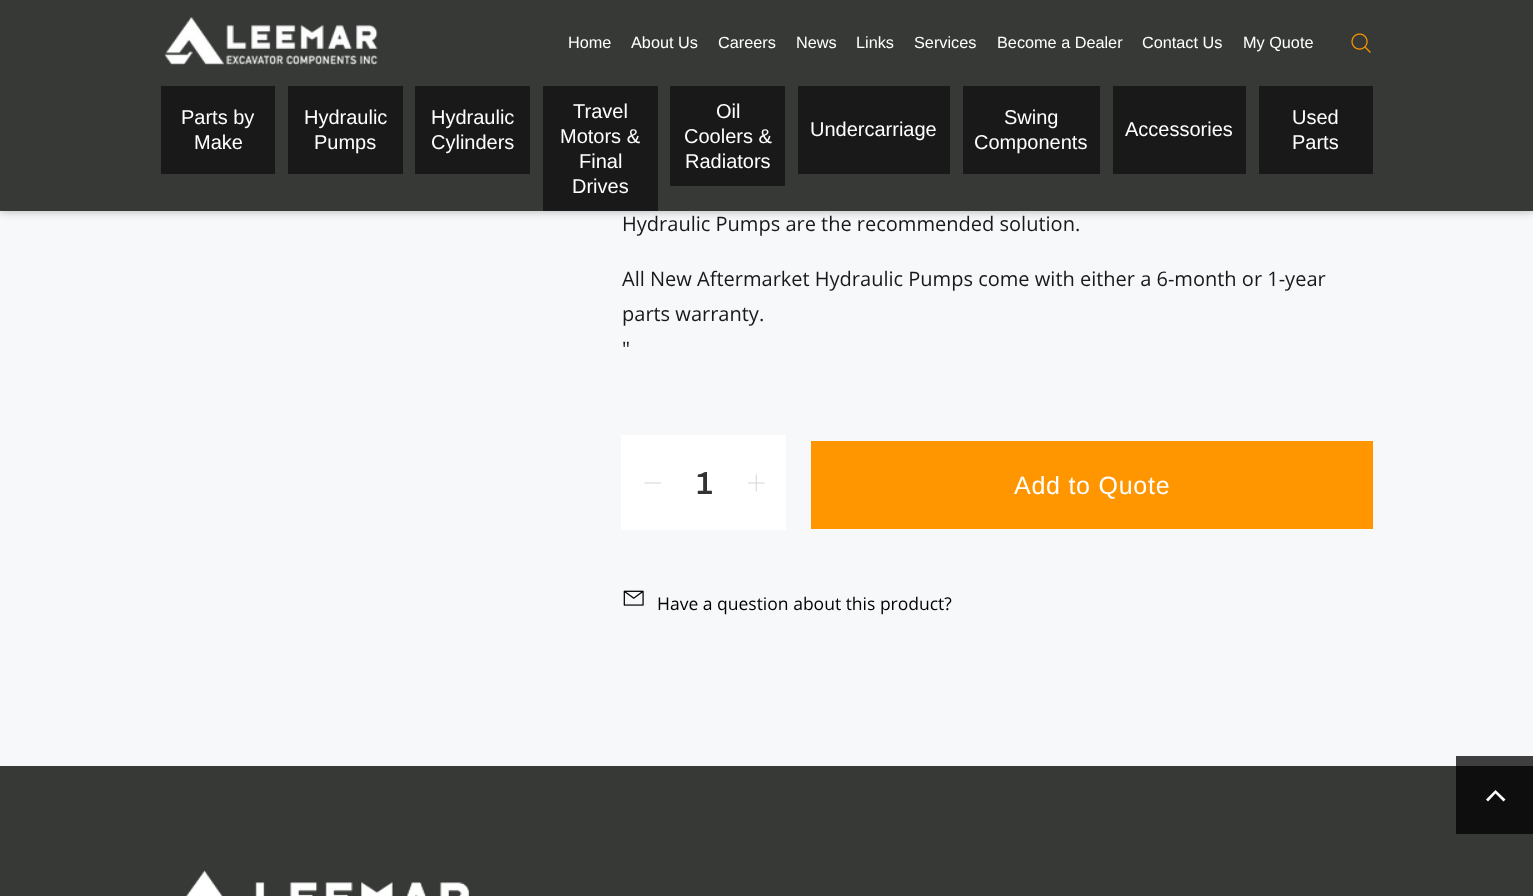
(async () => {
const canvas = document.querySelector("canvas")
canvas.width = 1533
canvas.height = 896
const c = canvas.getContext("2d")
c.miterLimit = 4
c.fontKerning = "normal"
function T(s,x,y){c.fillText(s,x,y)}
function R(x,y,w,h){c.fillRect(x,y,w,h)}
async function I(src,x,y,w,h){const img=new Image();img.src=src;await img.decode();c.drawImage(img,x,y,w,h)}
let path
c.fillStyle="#f7f8fa"
R(0,0,1533,896)
c.fillStyle="#3e3e3f"
R(1456,756,77,10)
c.fillStyle="#0000004d"
c.filter="blur(5px)"
c.beginPath()
c.rect(0,0,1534,211)
c.fill()
c.filter="none"
c.fillStyle="#363936"
R(0,0,1533,211)
await I("1.png",164,17,214,48)
c.font="16.25px Liberation Sans"
c.fillStyle="#fff"
T("Home",568,48)
T("About Us",631,48)
T("Careers",718,48)
T("News",796,48)
T("Links",856,48)
T("Services",914,48)
T("Become a Dealer",997,48)
T("Contact Us",1142,48)
T("My Quote",1243,48)
await I("2.png",1351,33,20,20)
c.fillStyle="#191919"
R(161,86,114,88)
c.font="20px Liberation Sans"
c.fillStyle="#fff"
T("Parts by",181,124)
T("Make",194,149)
c.fillStyle="#191919"
R(288,86,115,88)
c.fillStyle="#fff"
T("Hydraulic",304,124)
T("Pumps",314,149)
c.fillStyle="#191919"
R(415,86,115,88)
c.fillStyle="#fff"
T("Hydraulic",431,124)
T("Cylinders",431,149)
c.fillStyle="#191919"
R(543,86,115,125)
c.fillStyle="#fff"
T("Travel",573,118)
T("Motors &",560,143)
T("Final",579,168)
T("Drives",572,193)
c.fillStyle="#191919"
R(670,86,115,100)
c.fillStyle="#fff"
T("Oil",716,118)
T("Coolers &",684,143)
T("Radiators",685,168)
c.fillStyle="#191919"
R(798,86,152,88)
c.fillStyle="#fff"
T("Undercarriage",810,136)
c.fillStyle="#191919"
R(963,86,137,88)
c.fillStyle="#fff"
T("Swing",1004,124)
T("Components",974,149)
c.fillStyle="#191919"
R(1113,86,133,88)
c.fillStyle="#fff"
T("Accessories",1125,136)
c.fillStyle="#191919"
R(1259,86,114,88)
c.fillStyle="#fff"
T("Used",1292,124)
T("Parts",1292,149)
c.font="20px Open Sans"
c.fillStyle="#191919"
T("Hydraulic Pumps are the recommended solution.",622,231)
T("All New Aftermarket Hydraulic Pumps come with either a 6-month or 1-year",622,286)
T("parts warranty.",622,321)
T("\"",622,356)
c.fillStyle="#fff"
R(621,435,165,95)
await I("3.png",644,482,17,2)
c.font="600 32px Archivo"
c.fillStyle="#333"
T("1",695,494)
await I("4.png",748,474,17,18)
c.fillStyle="#ff9600"
R(811,441,562,88)
c.letterSpacing="0.75px"
c.font="25px Liberation Sans"
c.fillStyle="#fff"
T("Add to Quote",1014,494)
await I("5.png",623,590,21,16)
c.letterSpacing="0px"
c.font="17.5px Open Sans"
c.fillStyle="#000"
T("Have a question about this product?",657,610)
c.fillStyle="#363936"
R(0,766,1533,130)
c.fillStyle="#0e0e0e"
R(1456,766,77,68)
await I("6.png",186,870,284,26)
c.fillStyle="#fff"
path = new Path2D("M1503.5 801.5l-8-8l-7.5 8l-2-2l9.5-9.5l10 9.5z")
c.fill(path)
})()
